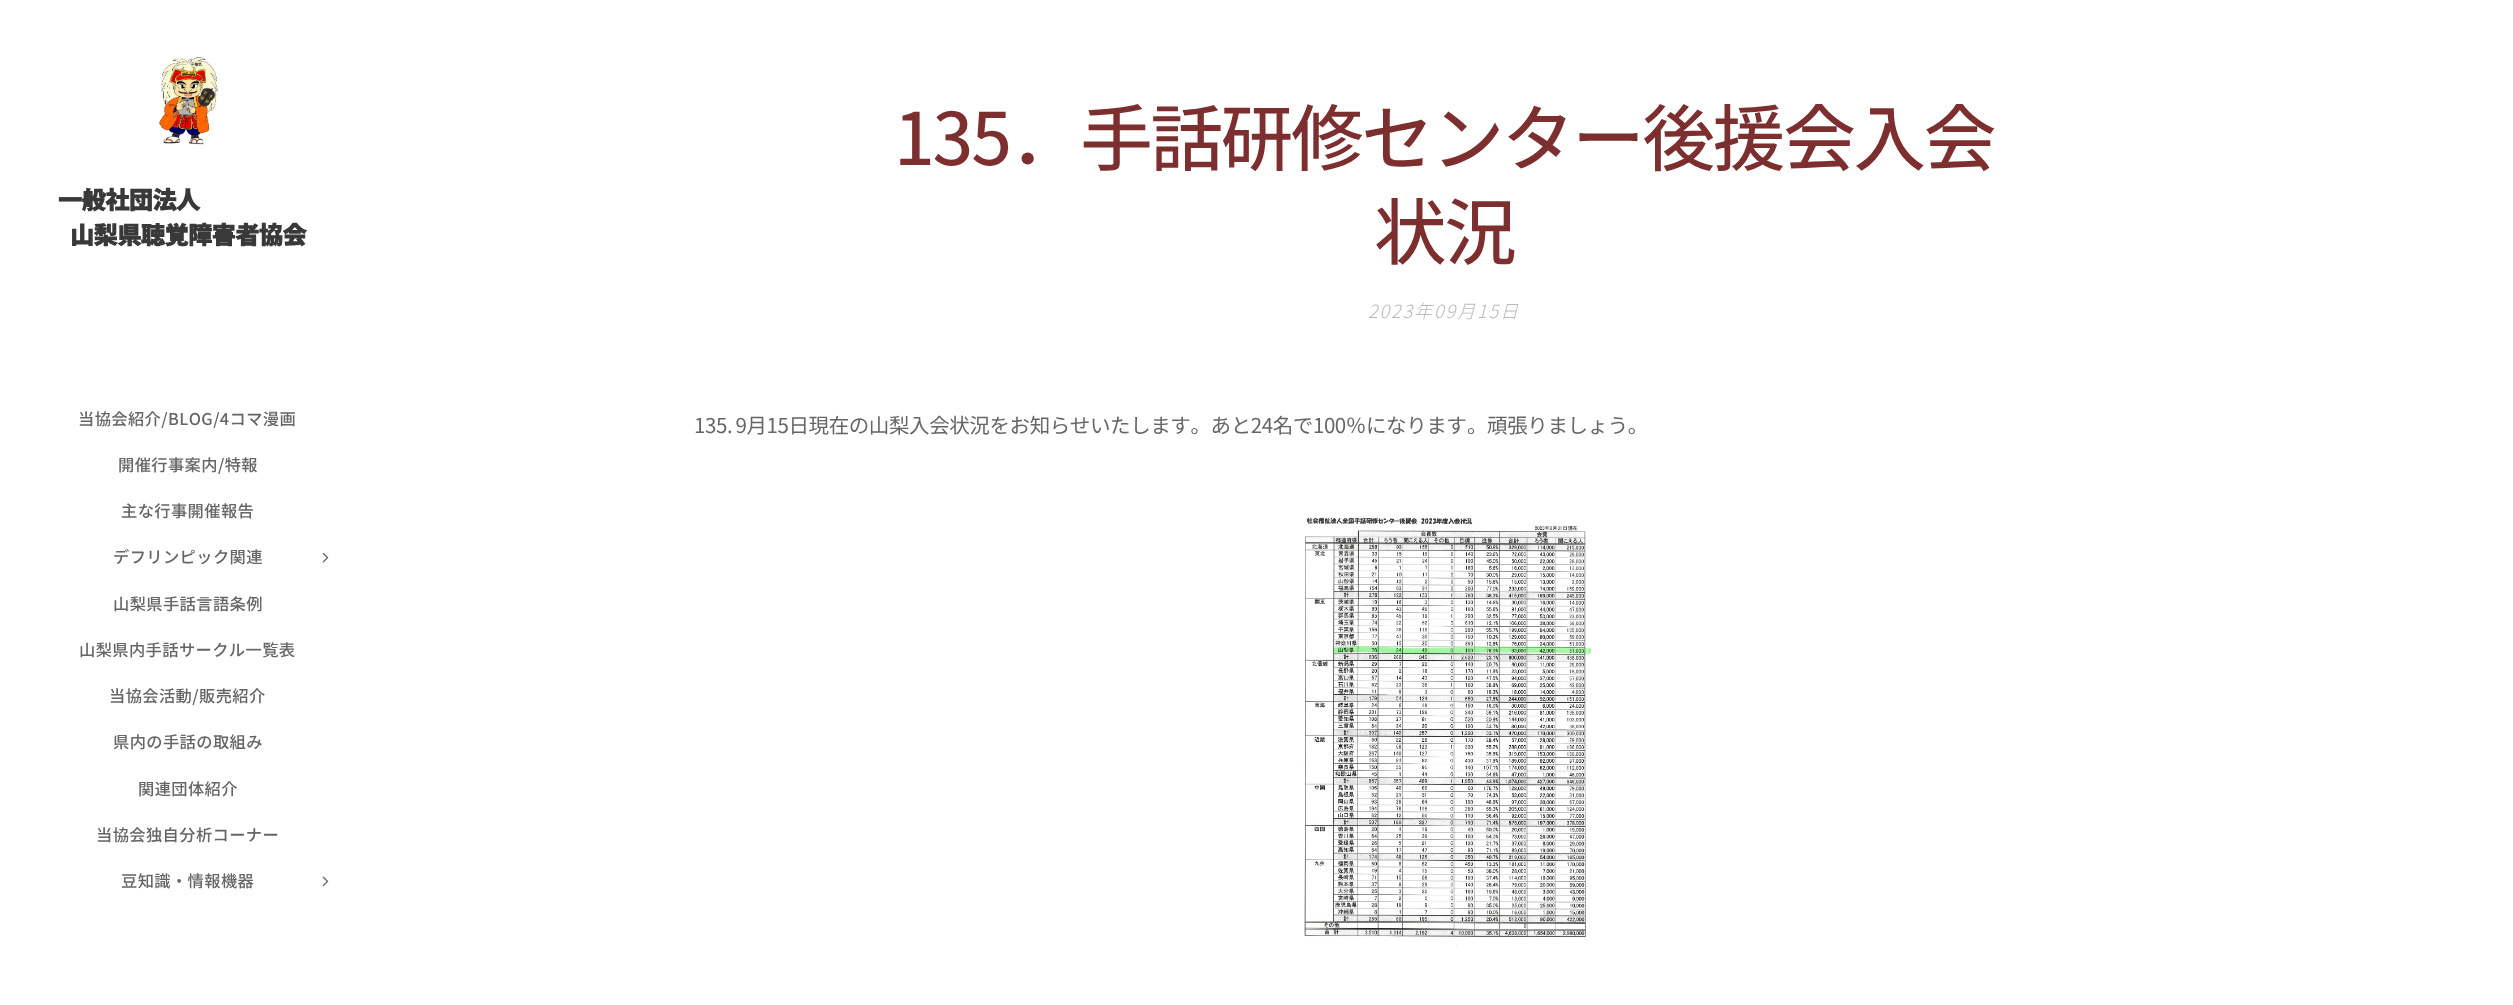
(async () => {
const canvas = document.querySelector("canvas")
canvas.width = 2513
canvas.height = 1005
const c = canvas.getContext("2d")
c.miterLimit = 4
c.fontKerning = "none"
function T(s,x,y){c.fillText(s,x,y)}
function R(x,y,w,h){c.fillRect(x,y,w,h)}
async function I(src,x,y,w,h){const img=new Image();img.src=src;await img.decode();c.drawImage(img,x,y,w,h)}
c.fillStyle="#fff"
R(0,0,2513,1005)
await I("1.png",159,57,59,88)
c.letterSpacing="-0.4px"
c.font="bold 24px Mochiy Pop P One"
c.fillStyle="#393939"
T("一般社団法人",58,209)
T("山梨県聴覚障害者協会",70,244)
c.letterSpacing="0.4px"
c.font="500 16.25px Noto Sans JP"
c.fillStyle="#666"
T("当協会紹介/BLOG/4コマ漫画",78,425)
T("開催行事案内/特報",118,471)
T("主な行事開催報告",121,517)
T("デフリンピック関連",113,563)
await I("2.png",322,552,7,11)
T("山梨県手話言語条例",113,610)
T("山梨県内手話サークル一覧表",79,656)
T("当協会活動/販売紹介",109,702)
T("県内の手話の取組み",113,748)
T("関連団体紹介",138,795)
T("当協会独自分析コーナー",96,841)
T("豆知識・情報機器",121,887)
await I("3.png",322,876,7,11)
c.letterSpacing="-2.2px"
c.font="72.5px Noto Sans JP"
c.fillStyle="#7d2f2f"
T("135．手話研修センター後援会入会",894,165)
T("状況",1374,259)
c.letterSpacing="1.75px"
c.font="italic 300 18.25px Noto Sans JP"
c.fillStyle="#bababa"
T("2023年09月15日",1368,318)
c.letterSpacing="-0.4px"
c.wordSpacing="-1px"
c.font="20.5px 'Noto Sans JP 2'"
c.fillStyle="#666"
T("135. 9月15日現在の山梨入会状況をお知らせいたします。あと24名で100％になります",694,433)
T("。頑張りましょう。",1467,433)
await I("4.png",1284,517,308,429)
})()
